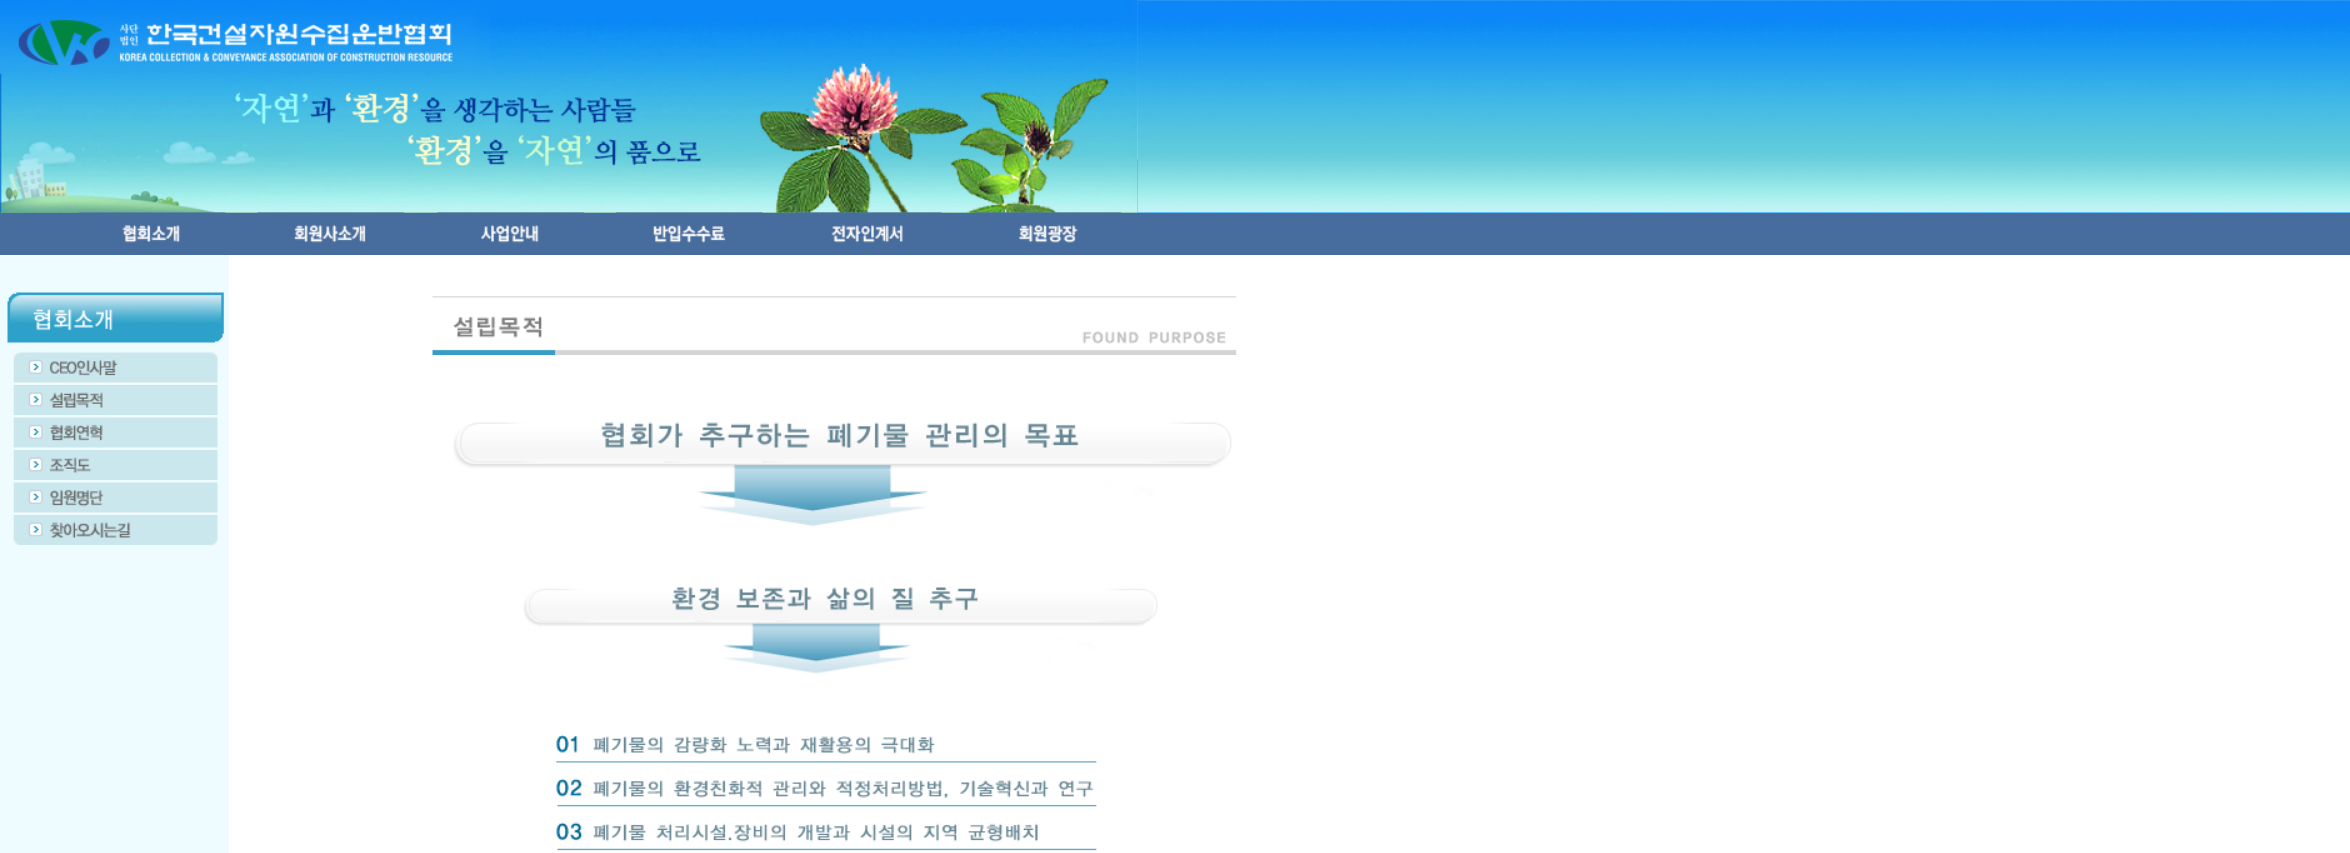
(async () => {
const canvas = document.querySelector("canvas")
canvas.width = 2350
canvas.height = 853
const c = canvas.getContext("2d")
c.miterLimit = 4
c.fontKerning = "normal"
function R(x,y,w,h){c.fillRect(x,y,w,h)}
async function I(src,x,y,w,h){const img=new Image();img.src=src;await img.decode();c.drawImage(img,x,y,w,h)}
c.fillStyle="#fff"
R(0,0,2350,853)
await I("1.png",0,0,2350,213)
await I("2.png",0,0,1138,213)
await I("3.png",0,0,1138,213)
c.fillStyle="#476d9e"
R(0,213,2350,42)
await I("4.png",78,212,147,31)
await I("5.png",257,212,147,31)
await I("6.png",437,212,147,31)
await I("7.png",616,212,147,31)
await I("8.png",795,212,147,31)
await I("9.png",975,212,147,31)
c.fillStyle="#eefbff"
R(0,255,229,598)
await I("10.png",7,292,217,51)
c.fillStyle="#fbf9f5"
R(14,353,204,30)
await I("11.png",13,352,205,31)
R(217,385,1,30)
await I("12.png",13,385,205,30)
R(14,418,204,30)
await I("13.png",13,417,205,31)
R(217,450,1,30)
await I("14.png",13,450,205,30)
R(14,483,204,30)
await I("15.png",13,482,205,31)
R(217,515,1,30)
await I("16.png",13,515,205,30)
await I("17.png",432,296,805,59)
await I("18.png",453,422,779,429)
})()
